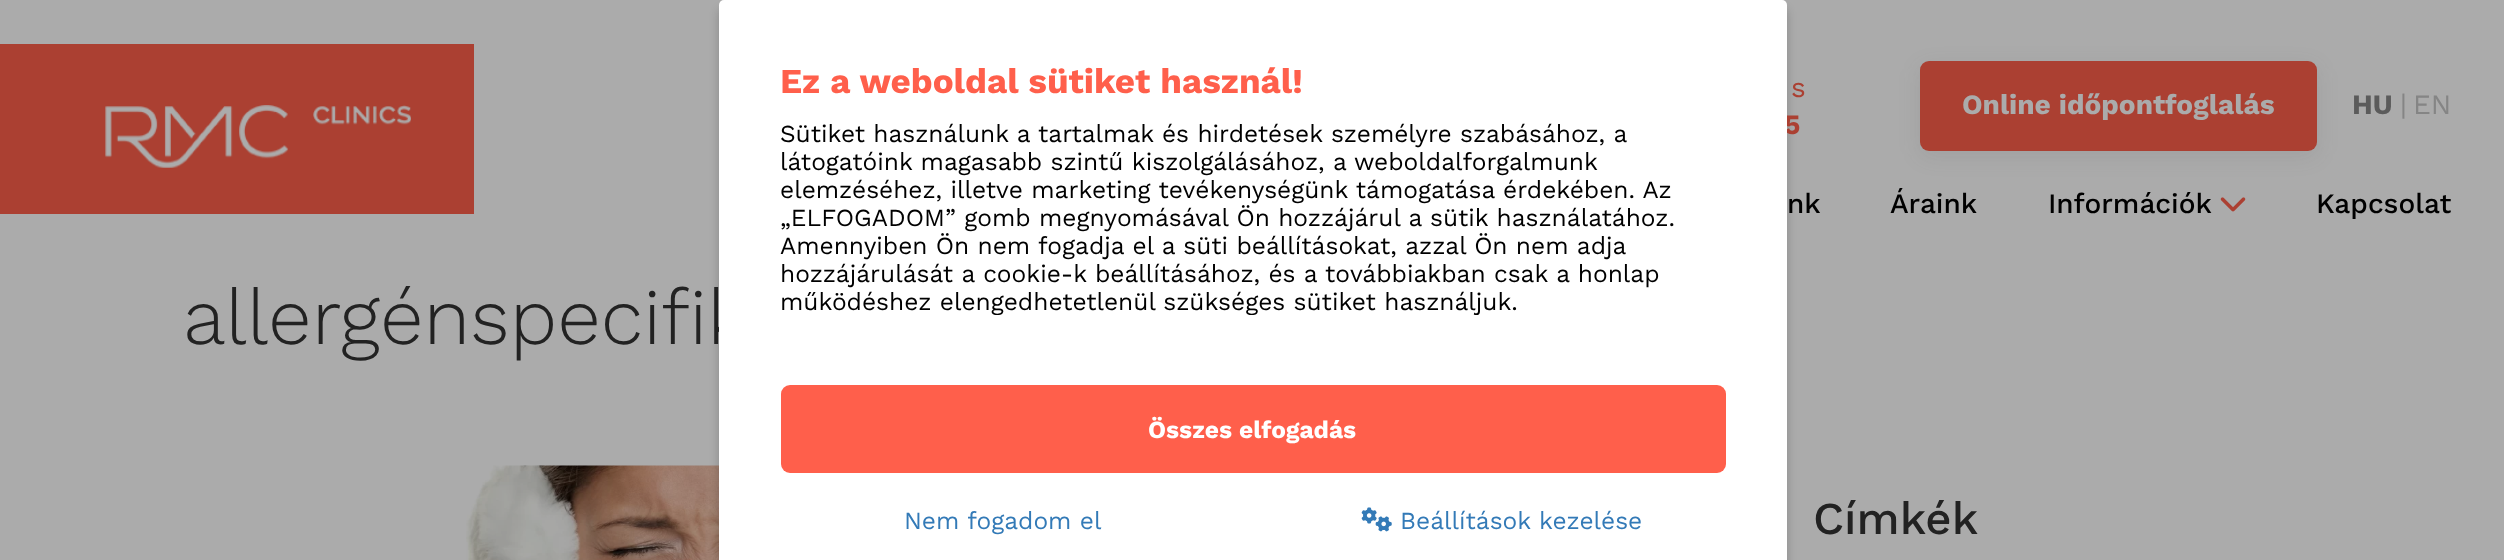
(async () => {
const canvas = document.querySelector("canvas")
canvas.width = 2504
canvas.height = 560
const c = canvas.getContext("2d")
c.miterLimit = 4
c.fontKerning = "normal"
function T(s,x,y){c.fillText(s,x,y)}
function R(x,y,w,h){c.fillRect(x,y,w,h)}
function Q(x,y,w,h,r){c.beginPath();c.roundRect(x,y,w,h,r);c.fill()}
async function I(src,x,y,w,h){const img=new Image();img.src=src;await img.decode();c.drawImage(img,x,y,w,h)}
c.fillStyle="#ababab"
R(0,0,2504,560)
await I("4.png",466,465,253,95)
c.fillStyle="#00000033"
c.filter="blur(5px)"
c.beginPath()
c.roundRect(719,9,1068,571,5)
c.fill()
c.filter="none"
c.font="bold 28px Work Sans"
c.fillStyle="#ab4032"
T("5",1784,134)
c.font="300 78.25px Work Sans"
c.fillStyle="#222"
T("allergénspecifik",183,344)
c.fillStyle="#fff"
c.beginPath()
c.roundRect(719,0,1068,560,[5,5,0,0])
c.fill()
c.font="bold 35px Work Sans"
c.fillStyle="#ff5f4b"
T("Ez a weboldal sütiket használ!",780,93)
c.font="24.5px Work Sans"
c.fillStyle="#000"
T("Sütiket használunk a tartalmak és hirdetések személyre szabásához, a",780,142)
T("látogatóink magasabb szintű kiszolgálásához, a weboldalforgalmunk",780,170)
T("elemzéséhez, illetve marketing tevékenységünk támogatása érdekében. Az",780,198)
T("„ELFOGADOM” gomb megnyomásával Ön hozzájárul a sütik használatához.",780,226)
T("Amennyiben Ön nem fogadja el a süti beállításokat, azzal Ön nem adja",780,254)
T("hozzájárulását a cookie-k beállításához, és a továbbiakban csak a honlap",780,282)
c.save()
c.beginPath()
c.rect(781,119,945,196)
c.clip()
T("működéshez elengedhetetlenül szükséges sütiket használjuk.",780,310)
c.restore()
c.fillStyle="#ff5f4b"
Q(781,385,945,88,9)
c.font="bold 24.5px Work Sans"
c.fillStyle="#fff"
T("Összes elfogadás",1148,438)
c.font="24.5px Work Sans"
c.fillStyle="#337ab7"
T("Nem fogadom el",904,529)
await I("1.png",1361,507,31,25)
T("Beállítások kezelése",1400,529)
c.fillStyle="#ab4032"
R(0,44,474,170)
await I("2.png",105,105,306,63)
c.font="28px Work Sans"
T("s",1791,97)
c.fillStyle="#4445481a"
c.filter="blur(10.5px)"
c.beginPath()
c.roundRect(1920,67,397,89,9)
c.fill()
c.filter="none"
c.fillStyle="#ab4032"
Q(1920,61,397,90,9)
c.font="bold 28px Work Sans"
c.fillStyle="#ababab"
T("Online időpontfoglalás",1962,114)
c.fillStyle="#5b5b5b"
T("HU",2352,114)
c.font="28px Work Sans"
c.fillStyle="#858585"
T("|",2400,114)
T("EN",2413,114)
c.font="500 28px Work Sans"
c.fillStyle="#000"
T("nk",1787,213)
T("Áraink",1890,213)
T("Információk",2048,213)
await I("3.png",2220,197,26,15)
T("Kapcsolat",2316,213)
c.font="500 45.5px Work Sans"
c.fillStyle="#222"
T("Címkék",1813,534)
})()
